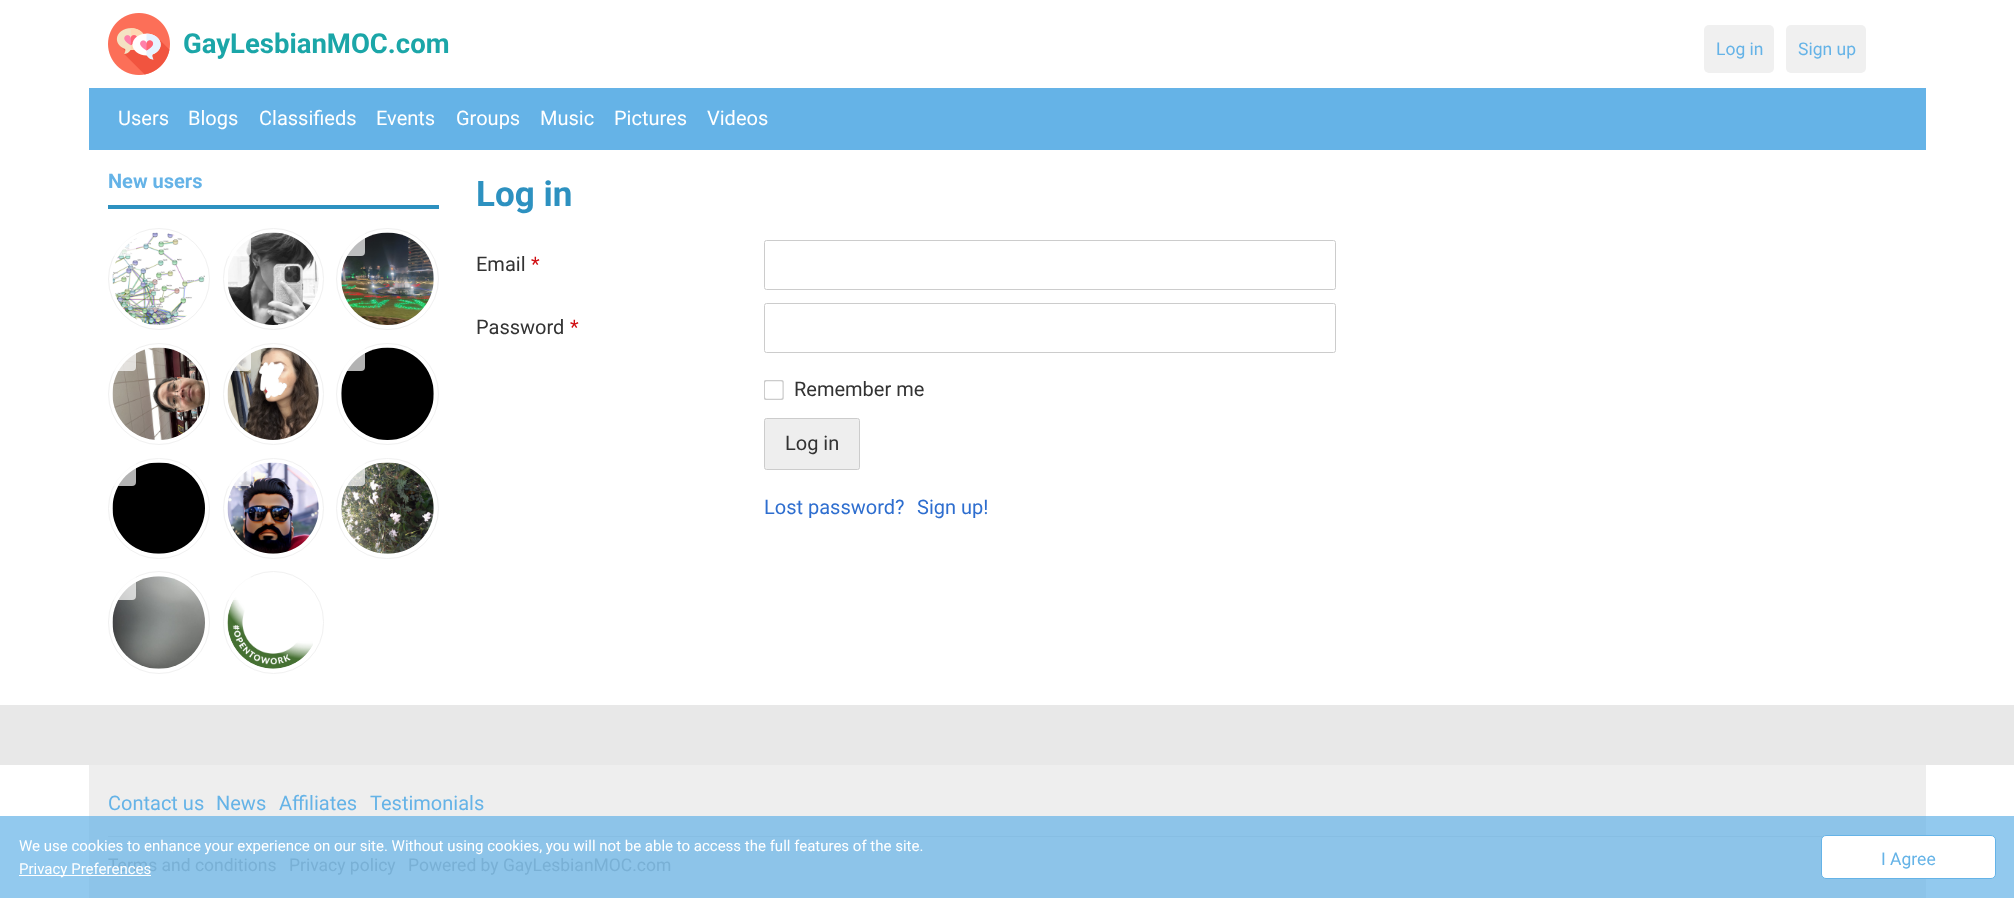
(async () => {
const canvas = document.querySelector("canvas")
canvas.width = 2014
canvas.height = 898
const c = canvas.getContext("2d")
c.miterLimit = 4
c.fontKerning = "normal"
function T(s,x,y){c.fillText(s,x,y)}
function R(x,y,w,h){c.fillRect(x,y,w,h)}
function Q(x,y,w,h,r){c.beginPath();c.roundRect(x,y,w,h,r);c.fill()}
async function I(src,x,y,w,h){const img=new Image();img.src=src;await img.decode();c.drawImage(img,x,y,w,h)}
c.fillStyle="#e8e8e8"
R(0,0,2014,898)
c.fillStyle="#fff"
R(0,0,2014,150)
await I("1.png",108,13,62,62)
c.font="bold 27.5px Roboto"
c.fillStyle="#1ba6a8"
T("GayLesbianMOC.com",183,53)
c.fillStyle="#65b3e7"
R(89,88,1837,62)
c.fillStyle="#f0f0f0"
Q(1704,25,70,48,5)
c.font="17.5px Roboto"
c.fillStyle="#65b3e7"
T("Log in",1716,55)
c.fillStyle="#f0f0f0"
Q(1786,25,80,48,5)
c.fillStyle="#65b3e7"
T("Sign up",1798,55)
c.font="20px Roboto"
c.fillStyle="#fff"
T("Users",118,125)
T("Blogs",188,125)
T("Classifieds",259,125)
T("Events",376,125)
T("Groups",456,125)
T("Music",540,125)
T("Pictures",614,125)
T("Videos",707,125)
R(0,150,2014,555)
c.fillStyle="#2d91c0"
R(108,205,331,4)
c.font="bold 20px Roboto"
c.fillStyle="#65b3e7"
T("New users",108,188)
c.beginPath()
c.arc(159,279,50.5,0,7)
c.strokeStyle="#f1f1f1"
c.stroke()
await I("2.png",112,232,93,93)
c.fillStyle="#ffffffb3"
Q(111,231,25,25,4)
c.beginPath()
c.roundRect(223.5,228.5,100,101,50)
c.stroke()
await I("3.png",228,232,91,93)
Q(226,231,25,25,4)
c.beginPath()
c.roundRect(336.5,228.5,102,101,50.5)
c.stroke()
await I("4.png",341,232,93,93)
Q(340,231,25,25,4)
c.beginPath()
c.arc(159,394,50.5,0,7)
c.stroke()
await I("5.png",112,347,93,93)
Q(111,346,25,25,4)
c.beginPath()
c.roundRect(223.5,343.5,100,101,50)
c.stroke()
await I("6.png",227,347,92,93)
Q(226,346,25,25,4)
c.beginPath()
c.roundRect(336.5,343.5,102,101,50.5)
c.stroke()
await I("7.png",341,347,93,93)
Q(340,346,25,25,4)
c.beginPath()
c.roundRect(108.5,458.5,101,100,50)
c.stroke()
await I("8.png",112,462,93,92)
Q(111,461,25,25,4)
c.beginPath()
c.arc(273.5,508.5,50,0,7)
c.stroke()
await I("9.png",227,462,92,92)
Q(226,461,25,25,4)
c.beginPath()
c.roundRect(336.5,458.5,102,100,50)
c.stroke()
await I("10.png",341,462,93,92)
Q(340,461,25,25,4)
c.beginPath()
c.roundRect(108.5,571.5,101,102,50.5)
c.stroke()
await I("11.png",112,576,93,93)
Q(111,575,25,25,4)
c.beginPath()
c.roundRect(223.5,571.5,100,102,50)
c.stroke()
await I("12.png",227,597,86,72)
Q(226,575,25,25,4)
c.font="bold 35px Roboto"
c.fillStyle="#2d91c0"
T("Log in",476,206)
c.font="20px Roboto"
c.fillStyle="#333"
T("Email",476,271)
c.fillStyle="#d00e12"
T("*",531,271)
c.beginPath()
c.roundRect(764.5,240.5,571,49,2)
c.strokeStyle="#ccc"
c.stroke()
c.fillStyle="#333"
T("Password",476,334)
c.fillStyle="#d00e12"
T("*",570,334)
c.beginPath()
c.roundRect(764.5,303.5,571,49,2)
c.stroke()
await I("13.png",764,380,20,20)
c.fillStyle="#333"
T("Remember me",794,396)
c.fillStyle="#eee"
c.beginPath()
c.roundRect(764.5,418.5,95,51,2)
c.fill()
c.stroke()
c.fillStyle="#333"
T("Log in",785,450)
c.fillStyle="#2e6ecf"
T("Lost password?",764,514)
T("Sign up!",917,514)
c.fillStyle="#fff"
R(0,765,2014,51)
c.fillStyle="#92c9ee"
R(0,816,2014,82)
c.fillStyle="#eee"
R(89,765,1837,51)
c.fillStyle="#8dc4e9"
R(89,816,1837,82)
c.fillStyle="#65b3e7"
T("Contact us",108,810)
T("News",216,810)
T("Affiliates",279,810)
T("Testimonials",370,810)
c.fillStyle="#87bee3"
R(108,836,1715,1)
c.font="17.5px Roboto"
c.fillStyle="#79b0d5"
T("Terms and conditions",108,871)
T("Privacy policy",289,871)
T("Powered by GayLesbianMOC.com",408,871)
c.font="15px Roboto"
c.fillStyle="#fff"
T("We use cookies to enhance your experience on our site. Without using cookies, you will not be able to access the full features of the site.",19,851)
R(19,875,132,1)
T("Privacy Preferences",19,874)
c.beginPath()
c.roundRect(1821.5,835.5,174,43,4.5)
c.fill()
c.strokeStyle="#65b3e7"
c.stroke()
c.font="17.5px Roboto"
c.fillStyle="#65b3e7"
T("I Agree",1881,865)
})()
